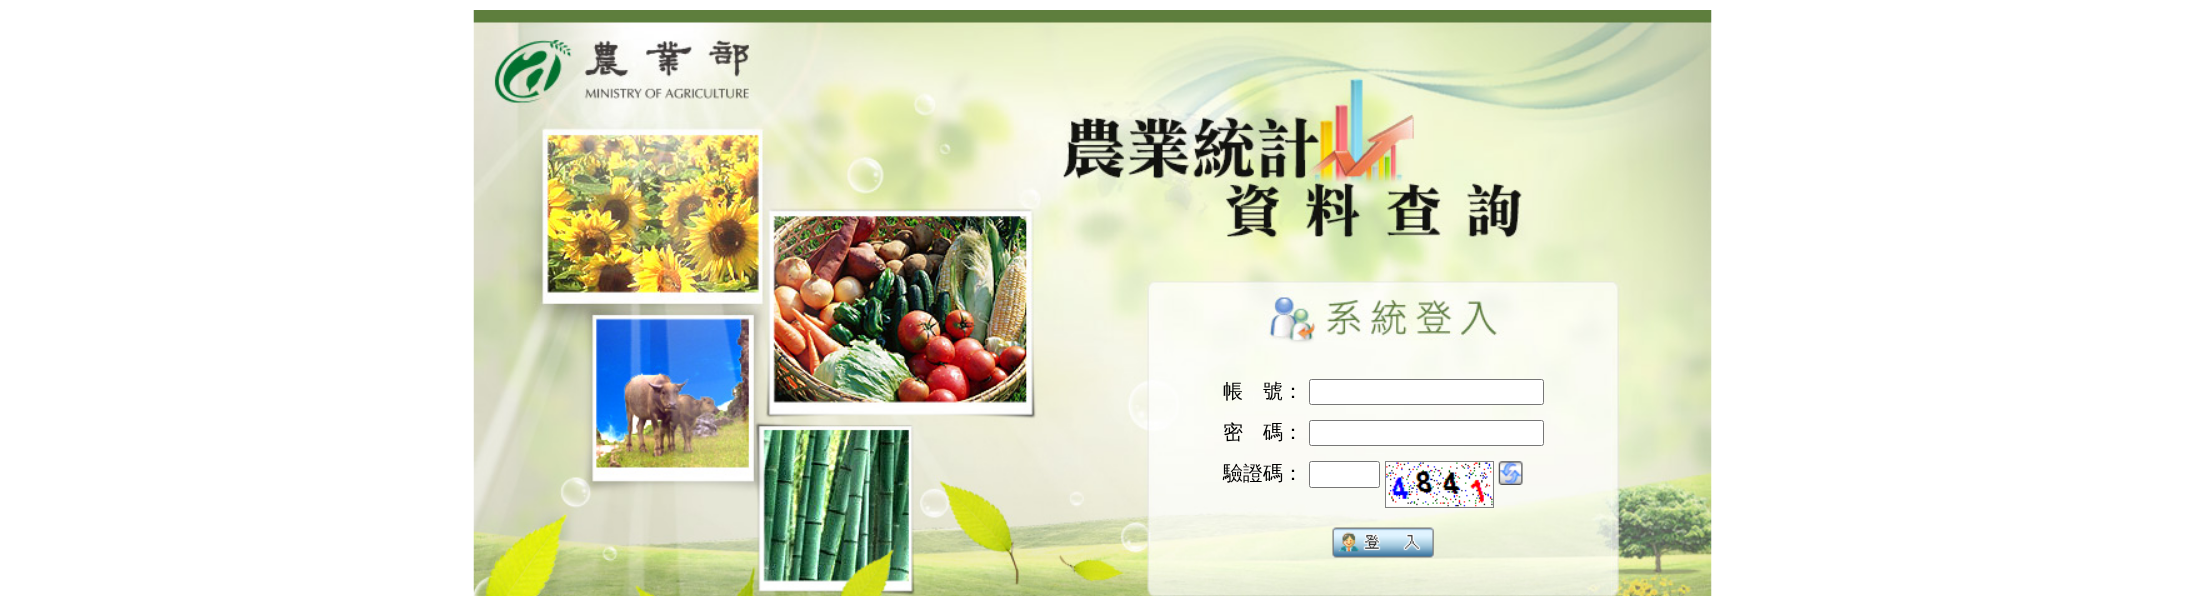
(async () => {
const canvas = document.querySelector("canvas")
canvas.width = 2185
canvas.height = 596
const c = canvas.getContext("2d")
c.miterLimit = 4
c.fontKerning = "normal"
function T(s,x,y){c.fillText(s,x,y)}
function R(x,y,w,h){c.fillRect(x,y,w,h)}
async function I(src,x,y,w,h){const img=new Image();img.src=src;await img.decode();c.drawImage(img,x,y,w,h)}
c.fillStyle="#fff"
R(0,0,2185,596)
await I("1.png",473,10,1239,335)
await I("2.png",473,345,682,251)
await I("3.png",1155,345,457,251)
c.font="500 20px WenQuanYi Zen Hei"
c.fillStyle="#000"
T("帳　號：",1223,398)
c.fillStyle="#fff"
c.beginPath()
c.roundRect(1309.5,379.5,234,25,2)
c.fill()
c.strokeStyle="#767676"
c.stroke()
c.fillStyle="#000"
T("密　碼：",1223,439)
c.fillStyle="#fff"
c.beginPath()
c.roundRect(1309.5,420.5,234,25,2)
c.fill()
c.stroke()
c.fillStyle="#000"
T("驗證碼：",1223,480)
c.fillStyle="#fff"
c.beginPath()
c.roundRect(1309.5,461.5,70,26,2)
c.fill()
c.stroke()
c.strokeStyle="#808080"
c.strokeRect(1385.5,461.5,108,46)
await I("4.png",1498,461,25,24)
await I("5.png",1386,462,107,45)
await I("6.png",1332,527,102,31)
await I("7.png",1611,345,101,251)
})()
